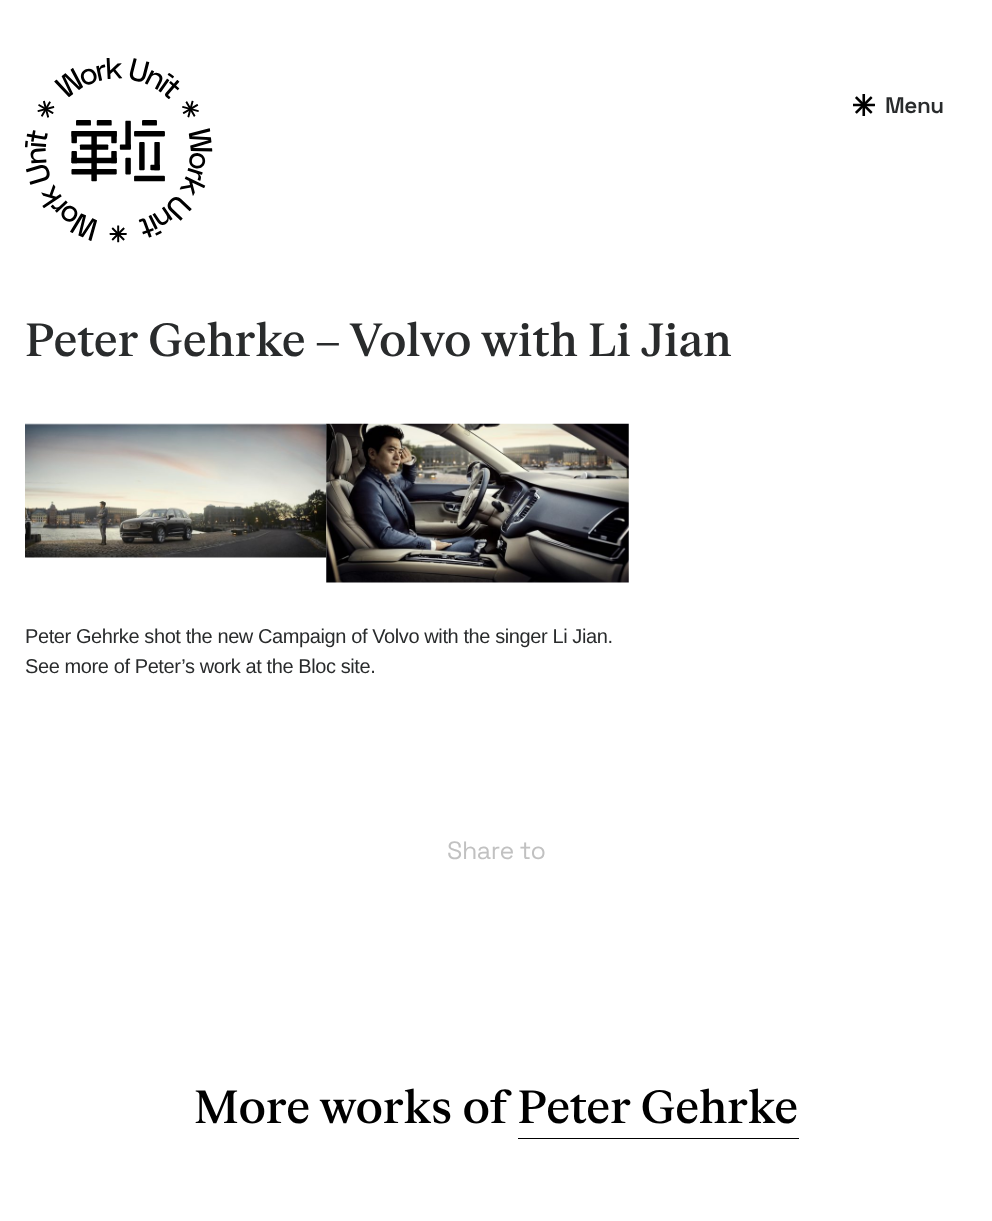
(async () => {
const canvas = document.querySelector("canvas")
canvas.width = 992
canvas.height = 1221
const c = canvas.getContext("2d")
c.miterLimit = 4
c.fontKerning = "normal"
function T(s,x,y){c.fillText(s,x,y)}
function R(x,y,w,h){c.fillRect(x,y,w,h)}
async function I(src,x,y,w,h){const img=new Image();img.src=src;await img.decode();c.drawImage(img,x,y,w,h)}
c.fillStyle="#fff"
R(0,0,992,1221)
await I("1.png",25,58,188,185)
await I("2.png",853,94,22,22)
c.letterSpacing="-0.4px"
c.font="600 22.5px Space Grotesk"
c.fillStyle="#292b2c"
T("Menu",885,113)
c.font="500 45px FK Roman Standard"
T("Peter Gehrke – Volvo with Li Jian",25,356)
await I("3.png",25,423,302,135)
await I("4.png",326,423,303,160)
c.font="20px Liberation Sans"
T("Peter Gehrke shot the new Campaign of Volvo with the singer Li Jian.",25,643)
T("See more of Peter’s work at the Bloc site.",25,673)
c.font="25px Space Grotesk"
c.fillStyle="#c1c1c1"
T("Share to",447,859)
c.font="500 45px FK Roman Standard"
c.fillStyle="#000"
T("More works of Peter Gehrke",194,1123)
R(518,1138,281,1)
})()
